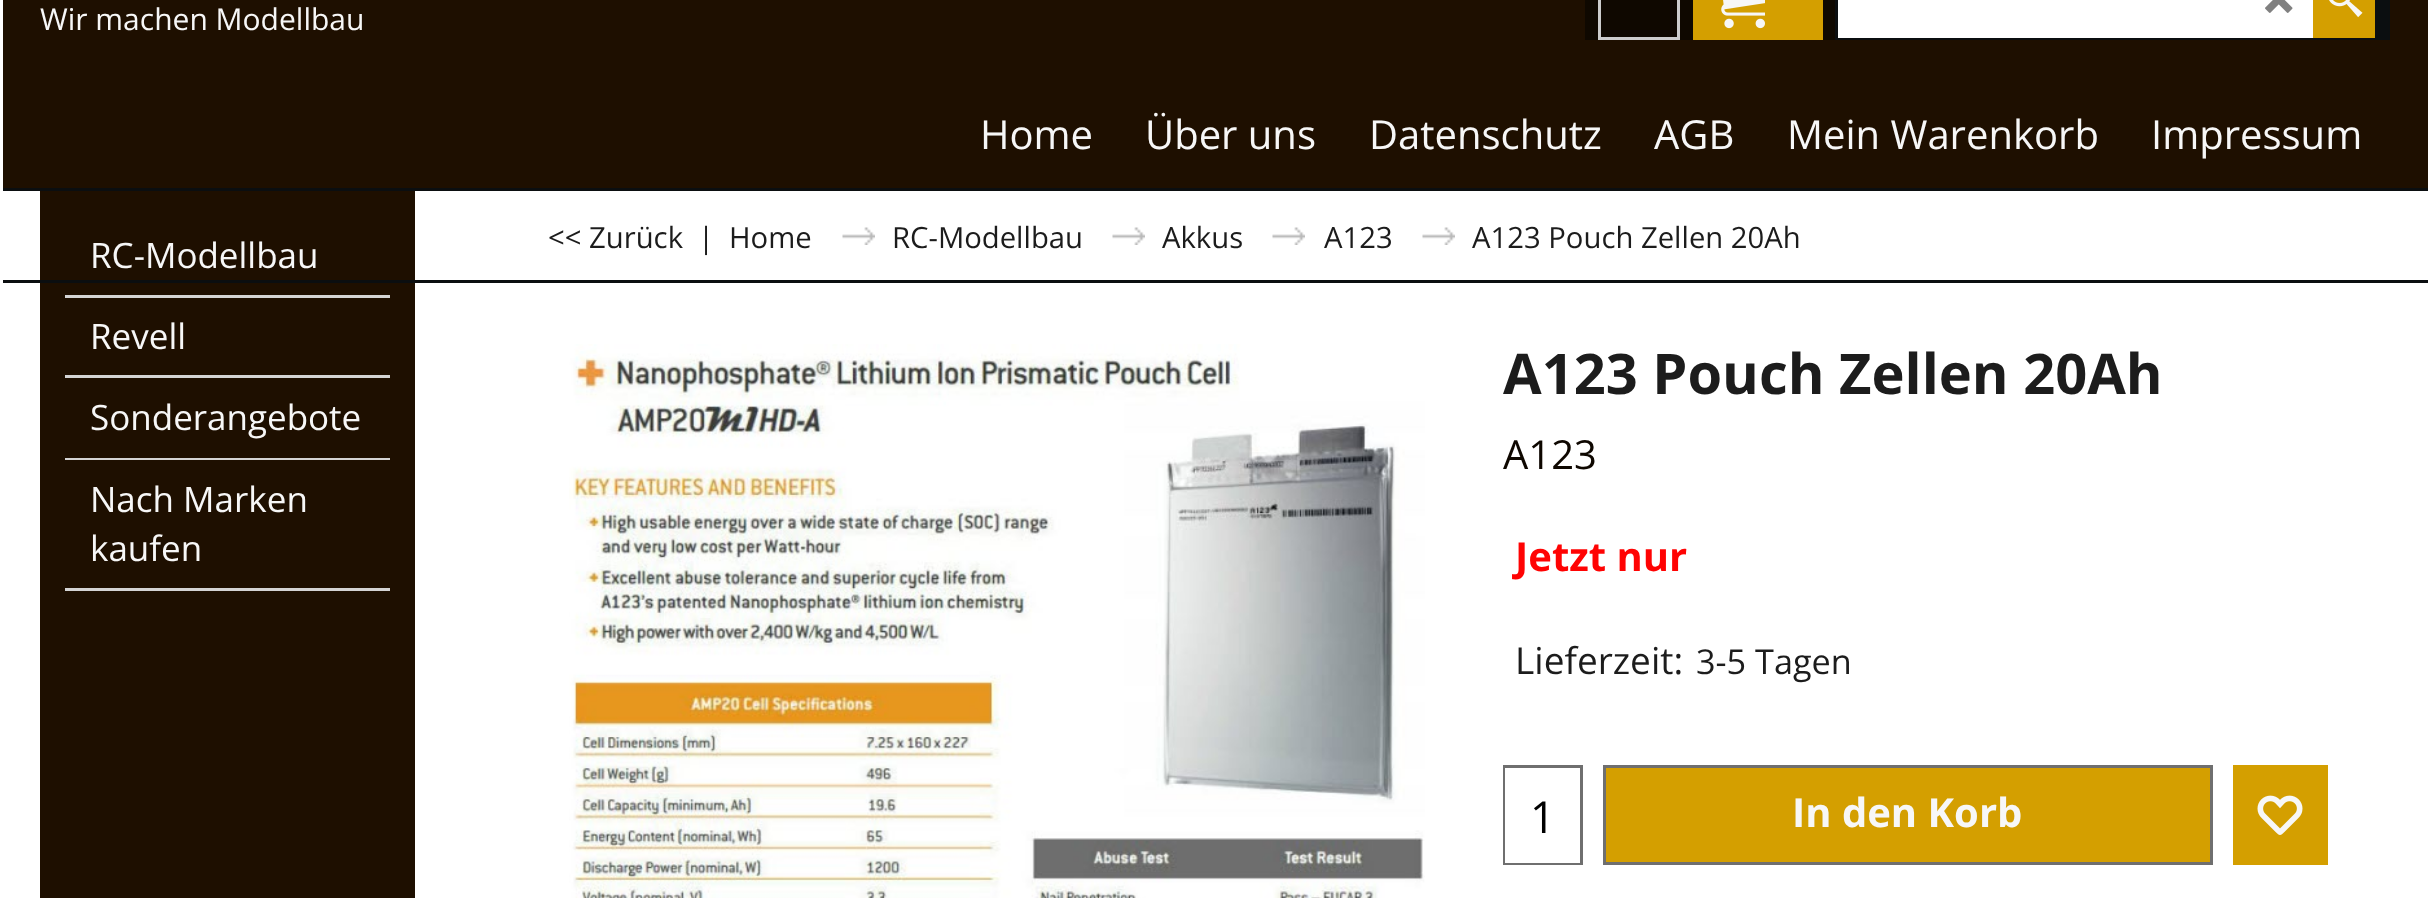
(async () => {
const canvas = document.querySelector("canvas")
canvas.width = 2428
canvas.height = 898
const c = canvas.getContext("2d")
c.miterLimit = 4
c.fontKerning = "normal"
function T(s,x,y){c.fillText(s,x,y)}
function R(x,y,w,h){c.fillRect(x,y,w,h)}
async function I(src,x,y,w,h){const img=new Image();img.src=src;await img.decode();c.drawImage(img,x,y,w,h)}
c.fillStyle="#fff"
R(0,0,2428,898)
c.fillStyle="#1e0f00"
R(3,0,2425,188)
c.font="30px Open Sans"
c.fillStyle="#f7f7f7"
T("Wir machen Modellbau",40,30)
c.fillStyle="#0f0800"
R(1585,0,250,40)
c.strokeStyle="#ccc"
c.lineWidth=3
c.strokeRect(1599.5,-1.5,79,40)
c.fillStyle="#d49f00"
R(1693,0,130,40)
await I("1.png",1721,0,44,29)
c.fillStyle="#0b0e10"
R(1835,0,555,40)
c.fillStyle="#fff"
R(1838,0,475,38)
await I("2.png",2265,0,28,13)
c.fillStyle="#d49f00"
R(2313,0,62,38)
await I("3.png",2329,0,34,18)
c.font="40px Open Sans"
c.fillStyle="#f7f7f7"
T("Home",980,149)
T("Über uns",1145,149)
T("Datenschutz",1369,149)
T("AGB",1654,149)
T("Mein Warenkorb",1787,149)
T("Impressum",2151,149)
c.fillStyle="#1e0f00"
R(40,191,375,707)
c.fillStyle="#d4d4d4"
R(65,295,325,3)
c.font="35px Open Sans"
c.fillStyle="#f7f7f7"
T("RC-Modellbau",90,268)
c.fillStyle="#d4d4d4"
R(65,375,325,3)
c.fillStyle="#f7f7f7"
T("Revell",90,349)
c.fillStyle="#d4d4d4"
R(65,458,325,2)
c.fillStyle="#f7f7f7"
T("Sonderangebote",90,430)
c.fillStyle="#d4d4d4"
R(65,588,325,3)
c.fillStyle="#f7f7f7"
T("Nach Marken",90,512)
T("kaufen",90,561)
c.save()
c.beginPath()
c.rect(3,0,2425,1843)
c.clip()
c.strokeStyle="#0b0e10"
c.strokeRect(-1.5,189.5,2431,92)
c.restore()
c.font="29.25px Open Sans"
c.fillStyle="#1c1c1c"
T("<< Zurück",548,248)
T("|",698,248)
T("Home",729,248)
await I("4.png",842,227,33,18)
T("RC-Modellbau",892,248)
await I("5.png",1112,227,33,18)
T("Akkus",1162,248)
await I("4.png",1272,227,33,18)
T("A123",1324,248)
await I("4.png",1422,227,33,18)
T("A123 Pouch Zellen 20Ah",1472,248)
await I("6.png",569,344,856,554)
c.font="bold 56px Open Sans"
T("A123 Pouch Zellen 20Ah",1503,394)
c.font="40px Open Sans"
c.fillStyle="#0e0700"
T("A123",1503,469)
c.font="bold 40px Open Sans"
c.fillStyle="#ff0303"
T("Jetzt nur",1515,571)
c.font="37px Open Sans"
c.fillStyle="#1c1c1c"
T("Lieferzeit:",1515,674)
c.font="34.25px Open Sans"
T("3-5 Tagen",1696,674)
c.strokeStyle="#6f6f6f"
c.strokeRect(1504.5,766.5,77,97)
c.fillStyle="#fff"
R(1505,768,75,95)
c.font="44px Open Sans"
c.fillStyle="#000"
T("1",1530,833)
c.fillStyle="#d49f00"
c.beginPath()
c.rect(1604.5,766.5,607,97)
c.fill()
c.stroke()
c.font="bold 40px Open Sans"
c.fillStyle="#f7f7f7"
T("In den Korb",1792,827)
c.fillStyle="#d49f00"
R(2233,765,95,100)
await I("7.png",2257,795,46,40)
})()
